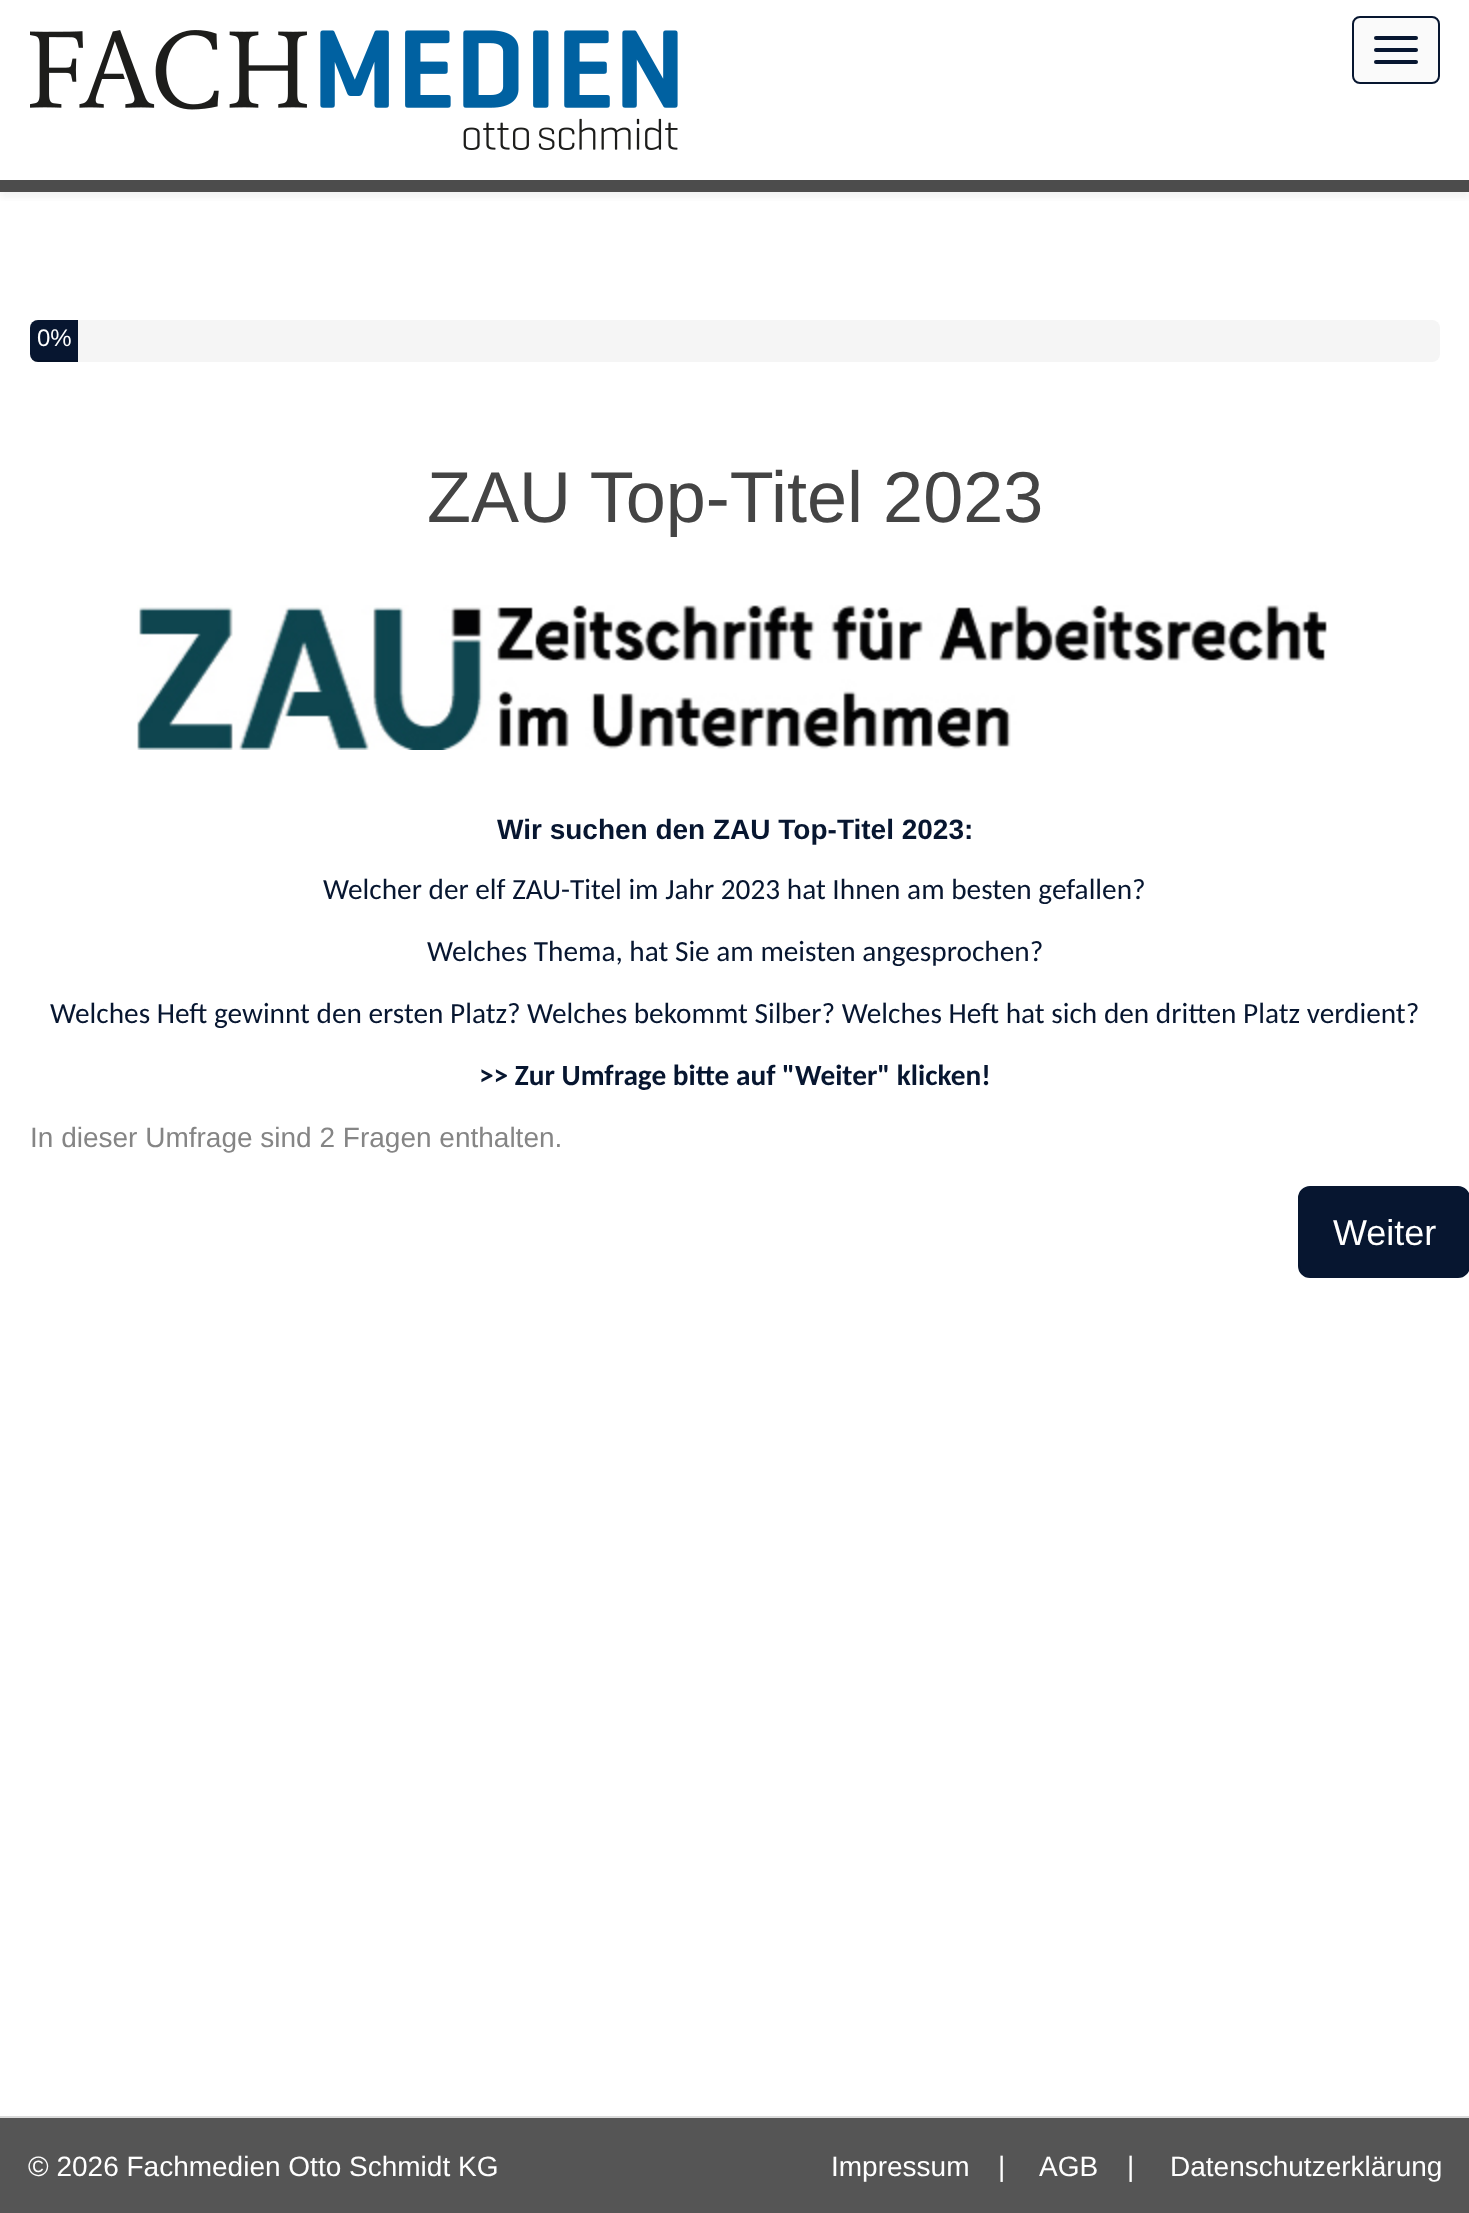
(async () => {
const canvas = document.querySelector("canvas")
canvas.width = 1469
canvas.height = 2213
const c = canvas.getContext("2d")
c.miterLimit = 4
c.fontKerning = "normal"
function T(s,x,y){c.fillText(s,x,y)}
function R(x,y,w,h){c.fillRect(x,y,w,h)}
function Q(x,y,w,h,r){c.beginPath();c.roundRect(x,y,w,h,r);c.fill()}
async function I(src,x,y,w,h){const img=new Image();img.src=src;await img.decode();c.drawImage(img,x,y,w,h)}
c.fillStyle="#fff"
R(0,0,1469,2213)
c.save()
c.beginPath()
c.rect(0,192,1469,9)
c.clip()
c.fillStyle="#84888a1a"
c.filter="blur(3px)"
c.beginPath()
c.rect(0,6,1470,192)
c.fill()
c.filter="none"
c.restore()
c.fillStyle="#4c4c4c"
R(0,180,1469,12)
await I("1.png",30,30,648,120)
c.fillStyle="#fafafa"
c.beginPath()
c.roundRect(1353,17,86,66,7)
c.fill()
c.strokeStyle="#071630"
c.lineWidth=2
c.stroke()
c.fillStyle="#071630"
Q(1374,36,44,4,2)
Q(1374,48,44,4,2)
Q(1374,60,44,4,2)
c.fillStyle="#f5f5f5"
Q(30,320,1410,42,8)
c.fillStyle="#071630"
c.beginPath()
c.roundRect(30,320,48,42,[8,0,0,8])
c.fill()
c.save()
c.beginPath()
c.roundRect(30,320,1410,42,8)
c.clip()
c.fillStyle="#00000026"
R(30,360,48,2)
c.restore()
c.font="24px Liberation Sans"
c.fillStyle="#fff"
T("0%",37,346)
c.font="72px Liberation Sans"
c.fillStyle="#444"
T("ZAU Top-Titel 2023",427,522)
await I("2.png",137,605,1190,145)
c.font="bold 28px Liberation Sans"
c.fillStyle="#071630"
T("Wir suchen den ZAU Top-Titel 2023:",497,839)
c.font="29.3px Carlito"
T("Welcher der elf ZAU-Titel im Jahr 2023 hat Ihnen am besten gefallen?",323,899)
T("Welches Thema, hat Sie am meisten angesprochen?",427,961)
T("Welches Heft gewinnt den ersten Platz?",50,1023)
T("Welches bekommt Silber? Welches Heft hat sich den dritten Platz verdient?",527,1023)
c.font="bold 29.3px Carlito"
T(">> Zur Umfrage bitte auf \"Weiter\" klicken!",479,1085)
c.font="28px Liberation Sans"
c.fillStyle="#858585"
T("In dieser Umfrage sind 2 Fragen enthalten.",30,1147)
c.fillStyle="#071630"
c.beginPath()
c.roundRect(1299,1187,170,90,11)
c.fill()
c.stroke()
c.font="36px Liberation Sans"
c.fillStyle="#fff"
T("Weiter",1333,1245)
c.fillStyle="#555"
R(0,2118,1469,95)
c.fillStyle="#dadada"
R(0,2116,1469,2)
c.font="28px Liberation Sans"
c.fillStyle="#fff"
T("© 2026 Fachmedien Otto Schmidt KG",28,2176)
T("Impressum",831,2176)
T("|",998,2176)
T("AGB",1039,2176)
T("|",1127,2176)
T("Datenschutzerklärung",1170,2176)
})()
